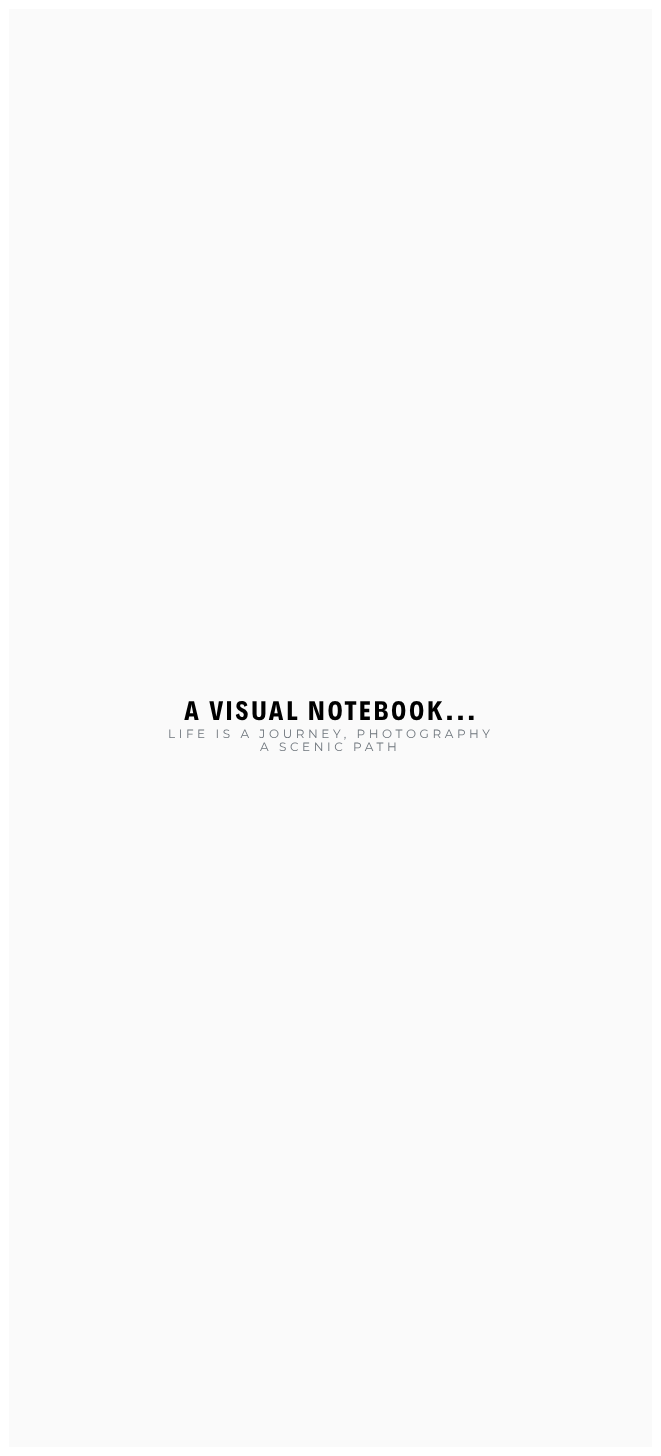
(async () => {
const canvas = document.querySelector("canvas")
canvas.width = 661
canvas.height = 1456
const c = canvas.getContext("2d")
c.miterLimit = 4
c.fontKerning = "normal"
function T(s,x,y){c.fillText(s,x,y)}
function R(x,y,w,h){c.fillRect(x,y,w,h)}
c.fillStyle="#fff"
R(0,0,661,1456)
c.fillStyle="#fafafa"
R(9,9,643,1438)
c.letterSpacing="2.4px"
c.font="bold 24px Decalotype"
c.fillStyle="#000"
T("A VISUAL NOTEBOOK...",184,720)
c.letterSpacing="3.6px"
c.font="100 12px Montserrat"
c.fillStyle="#6e757c"
T("LIFE IS A JOURNEY, PHOTOGRAPHY",168,738)
T("A SCENIC PATH",260,751)
})()
